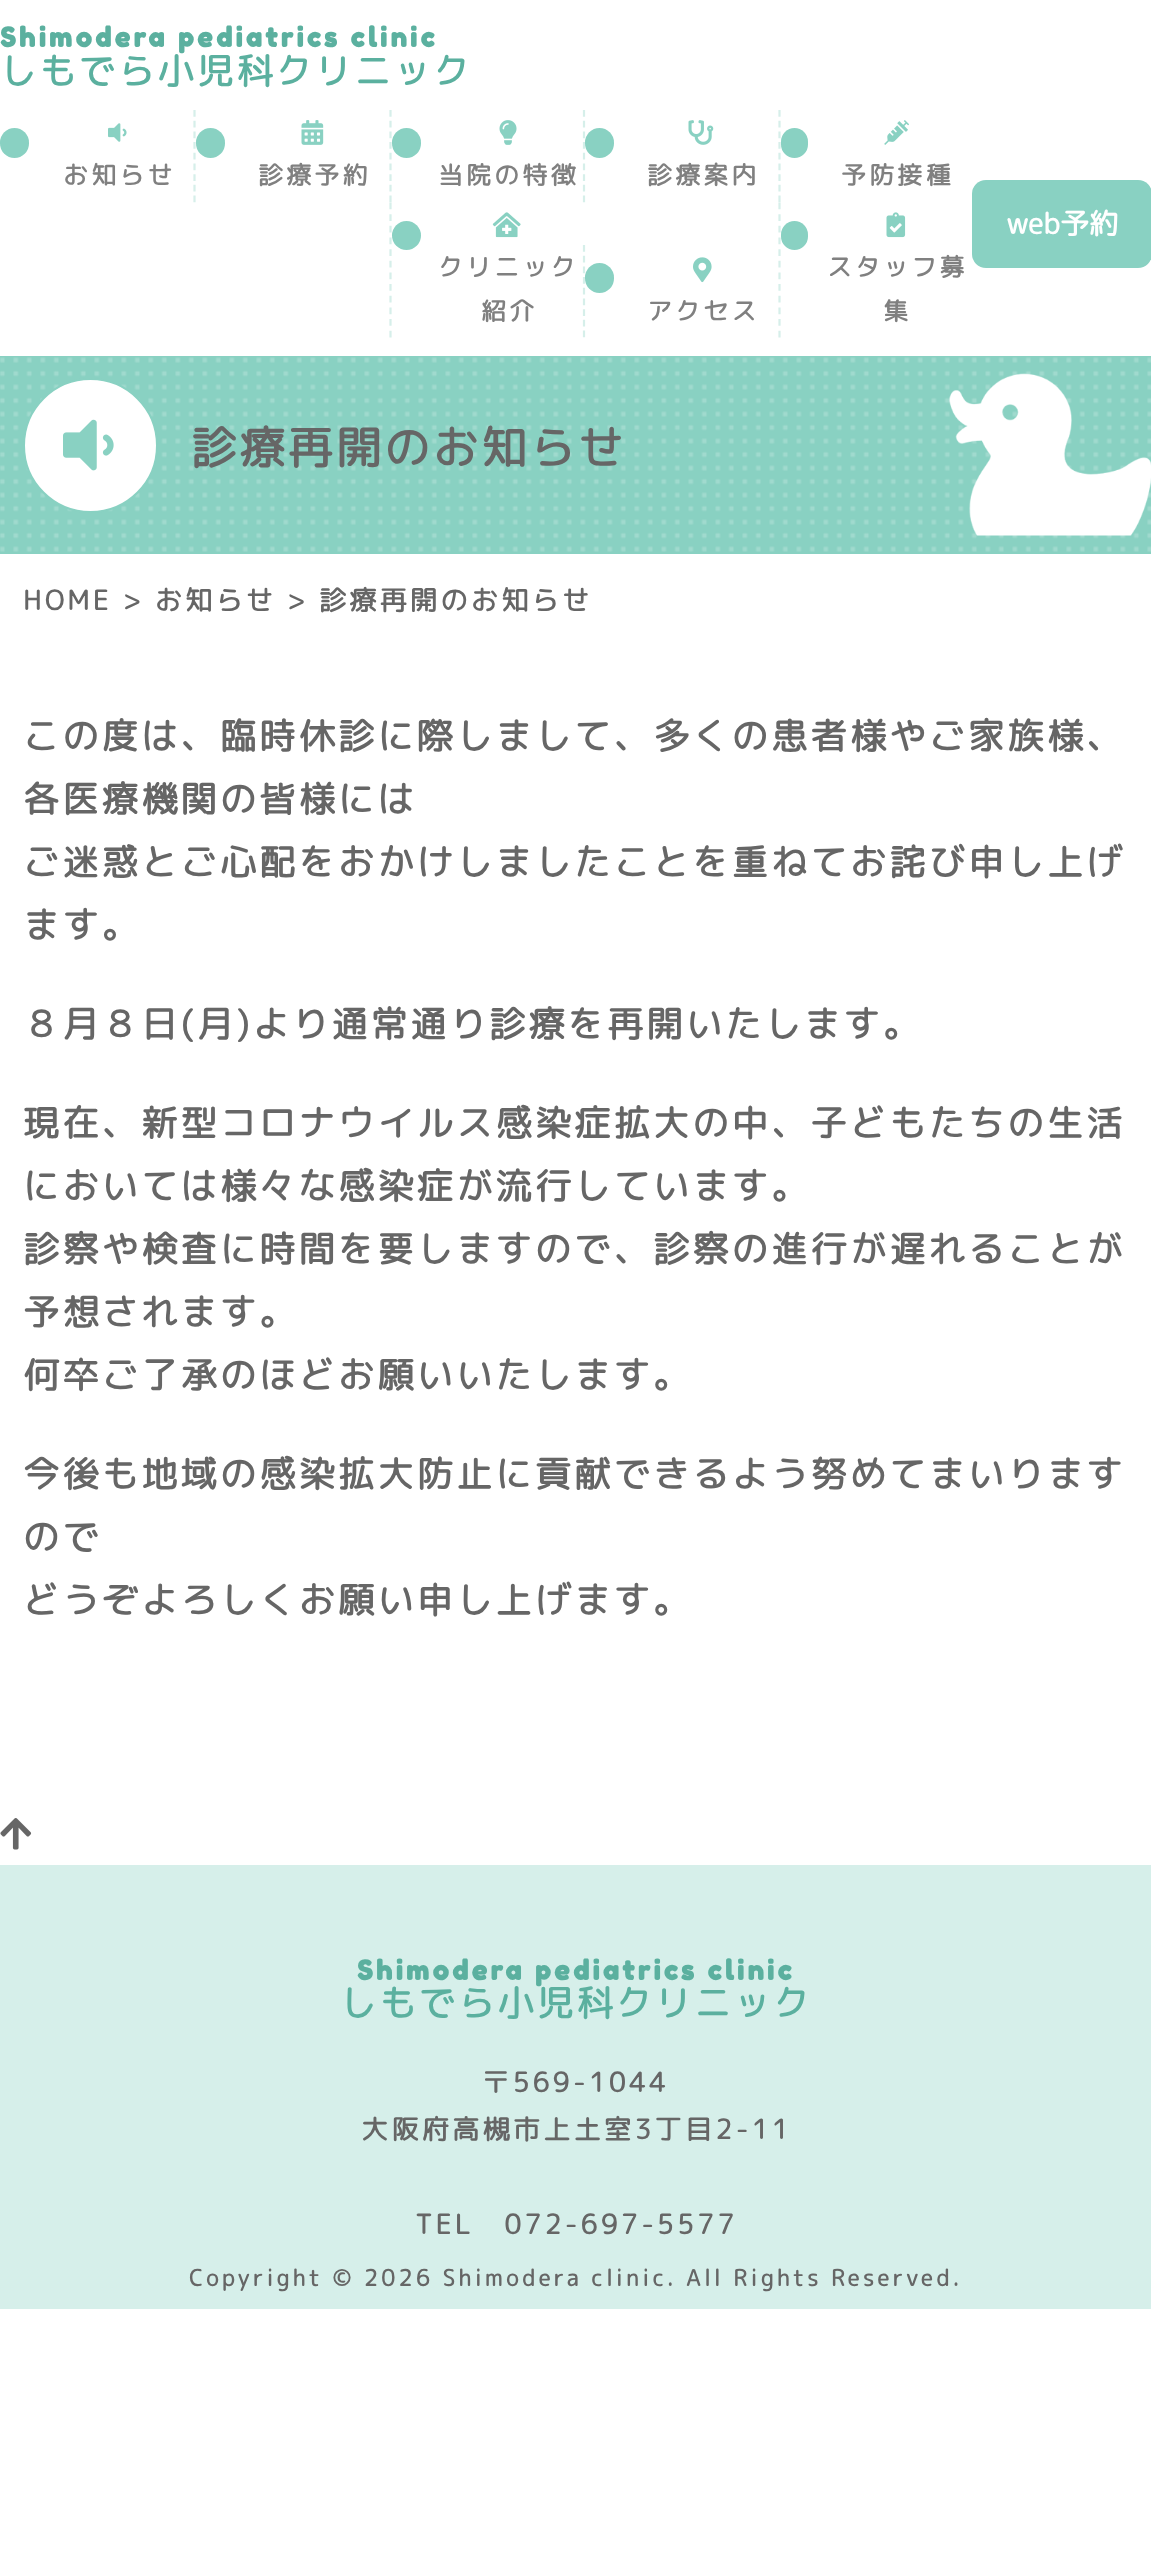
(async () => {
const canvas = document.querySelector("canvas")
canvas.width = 1151
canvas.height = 2575
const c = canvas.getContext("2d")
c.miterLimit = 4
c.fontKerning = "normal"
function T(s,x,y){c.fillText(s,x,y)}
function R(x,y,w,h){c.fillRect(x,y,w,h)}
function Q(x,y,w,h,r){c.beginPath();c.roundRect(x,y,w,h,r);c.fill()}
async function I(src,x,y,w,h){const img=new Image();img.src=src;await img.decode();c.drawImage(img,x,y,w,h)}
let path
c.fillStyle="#fff"
R(0,0,1151,2575)
c.letterSpacing="3.38px"
c.font="bold 27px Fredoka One"
c.fillStyle="#5bb09f"
T("Shimodera pediatrics clinic",0,47)
c.font="bold 36px 'Rounded Mplus 1c'"
T("しもでら小児科クリニック",0,84)
c.fillStyle="#89d1c2"
Q(0,128,29,30,14.5)
await I("1.png",108,123,19,19)
c.font="bold 24.75px 'Rounded Mplus 1c'"
c.fillStyle="#808080"
T("お知らせ",63,184)
path = new Path2D("M194.5 110v92.5")
c.strokeStyle="#d6efea"
c.lineWidth=2.2
c.setLineDash([6.75,3.94])
c.stroke(path)
c.fillStyle="#89d1c2"
Q(196,128,29,30,14.5)
await I("2.png",301,120,23,25)
c.fillStyle="#808080"
T("診療予約",258,184)
path = new Path2D("M390.5 110v92.5")
c.stroke(path)
c.fillStyle="#89d1c2"
Q(392,128,29,30,14.5)
await I("3.png",499,120,18,25)
c.fillStyle="#808080"
T("当院の特徴",438,184)
path = new Path2D("M584 110v92.5")
c.stroke(path)
c.fillStyle="#89d1c2"
Q(585,128,29,30,14.5)
await I("4.png",688,120,26,25)
c.fillStyle="#808080"
T("診療案内",647,184)
path = new Path2D("M779.5 110v92.5")
c.stroke(path)
c.fillStyle="#89d1c2"
Q(781,128,27,30,13.5)
await I("5.png",884,120,25,25)
c.fillStyle="#808080"
T("予防接種",841,184)
path = new Path2D("M390.5 202.5v135")
c.setLineDash([6.75,4.91])
c.stroke(path)
c.fillStyle="#89d1c2"
c.beginPath()
c.arc(406.5,235.5,14.5,0,7)
c.fill()
await I("6.png",492,212,29,26)
c.fillStyle="#808080"
T("クリニック",438,276)
T("紹介",481,320)
path = new Path2D("M584 245v92.5")
c.setLineDash([6.75,3.94])
c.stroke(path)
c.fillStyle="#89d1c2"
Q(585,263,29,30,14.5)
await I("7.png",693,257,19,26)
c.fillStyle="#808080"
T("アクセス",647,320)
path = new Path2D("M779.5 202.5v135")
c.setLineDash([6.75,4.91])
c.stroke(path)
c.fillStyle="#89d1c2"
Q(781,221,27,29,13.5)
await I("8.png",886,212,20,26)
c.fillStyle="#808080"
T("スタッフ募",827,276)
T("集",883,320)
c.fillStyle="#89d1c2"
Q(972,180,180,88,14)
c.letterSpacing="0px"
c.font="bold 29px 'Rounded Mplus 1c'"
c.fillStyle="#fff"
T("web予約",1006,234)
c.fillStyle="#89d1c2"
R(0,356,1151,198)
await I("9.png",0,357,1151,195)
await I("10.png",949,373,202,163)
c.fillStyle="#fff"
c.beginPath()
c.arc(90.5,445.5,66.5,0,7)
c.fill()
c.strokeStyle="#89d1c2"
c.lineWidth=2
c.setLineDash([])
c.stroke()
await I("11.png",63,419,51,52)
c.letterSpacing="3.38px"
c.font="bold 45px 'Rounded Mplus 1c'"
c.fillStyle="#666"
T("診療再開のお知らせ",191,464)
c.font="bold 27px 'Rounded Mplus 1c'"
T("HOME > お知らせ > 診療再開のお知らせ",23,610)
c.font="bold 36px 'Rounded Mplus 1c'"
T("この度は、臨時休診に際しまして、多くの患者様やご家族様、",23,749)
T("各医療機関の皆様には",23,812)
T("ご迷惑とご心配をおかけしましたことを重ねてお詫び申し上げ",23,875)
T("ます。",23,938)
T("８月８日(月)より通常通り診療を再開いたします。",23,1037)
T("現在、新型コロナウイルス感染症拡大の中、子どもたちの生活",23,1136)
T("においては様々な感染症が流行しています。",23,1199)
T("診察や検査に時間を要しますので、診察の進行が遅れることが",23,1262)
T("予想されます。",23,1325)
T("何卒ご了承のほどお願いいたします。",23,1388)
T("今後も地域の感染拡大防止に貢献できるよう努めてまいります",23,1487)
T("ので",23,1550)
T("どうぞよろしくお願い申し上げます。",23,1613)
await I("12.png",0,1818,32,32)
c.fillStyle="#d6efea"
R(0,1865,1151,444)
c.font="bold 27px Fredoka One"
c.fillStyle="#5bb09f"
T("Shimodera pediatrics clinic",357,1980)
c.font="bold 36px 'Rounded Mplus 1c'"
T("しもでら小児科クリニック",340,2016)
c.font="bold 27px 'Rounded Mplus 1c'"
c.fillStyle="#666"
T("〒569-1044",482,2092)
T("大阪府高槻市上土室3丁目2-11",361,2139)
T("TEL　072-697-5577",415,2234)
c.font="bold 22.5px 'Rounded Mplus 1c'"
T("Copyright © 2026 Shimodera clinic. All Rights Reserved.",189,2286)
})()
